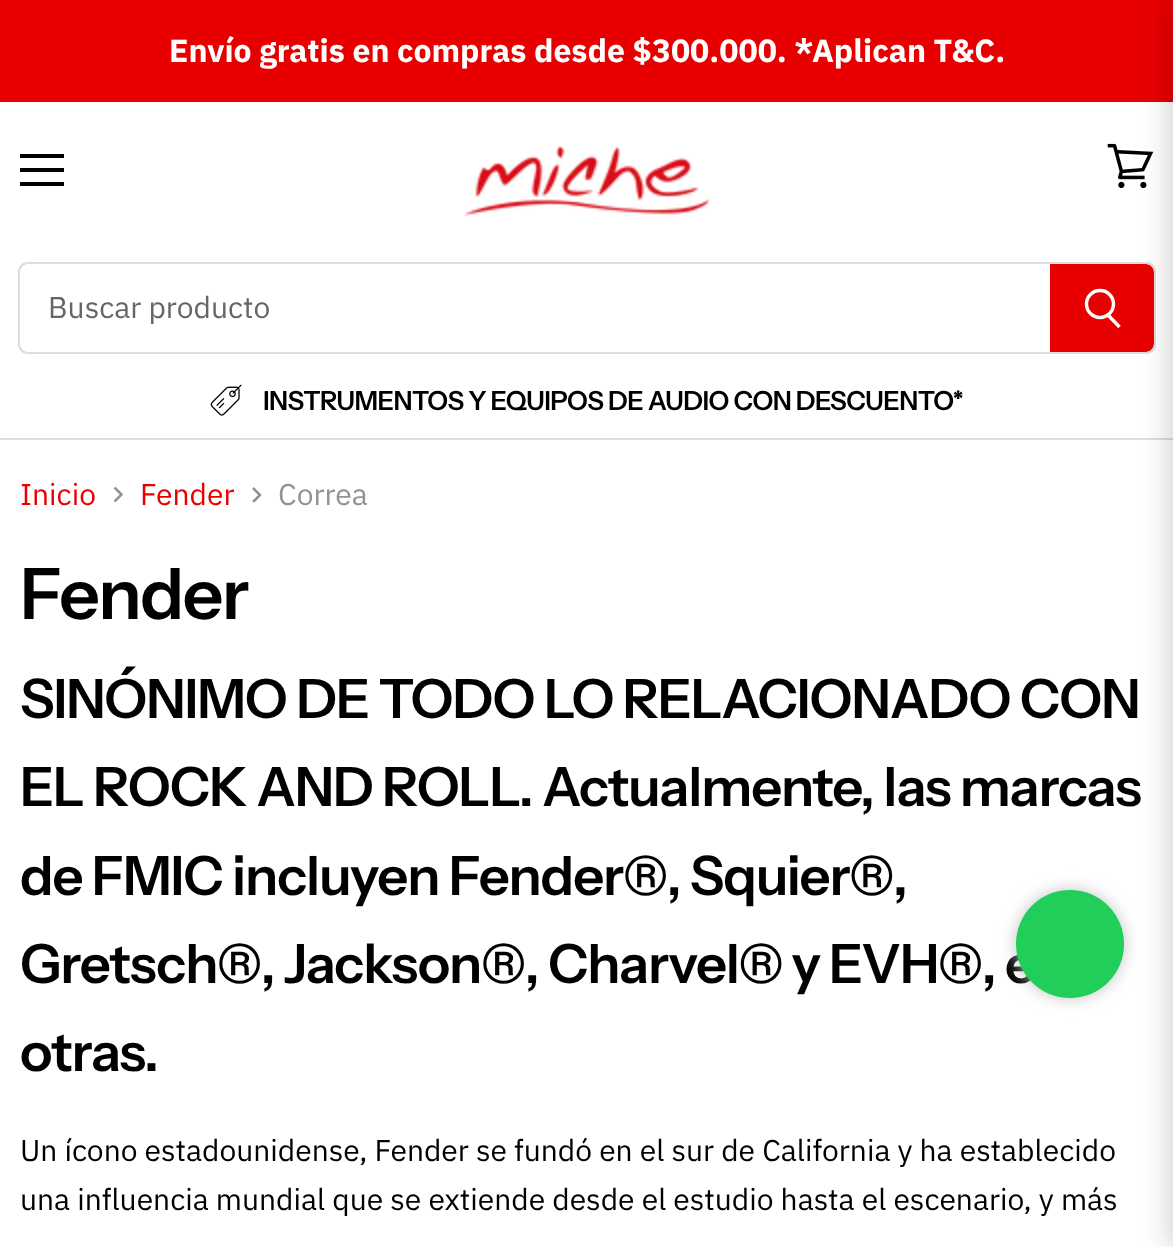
(async () => {
const canvas = document.querySelector("canvas")
canvas.width = 1173
canvas.height = 1247
const c = canvas.getContext("2d")
c.miterLimit = 4
c.fontKerning = "normal"
function T(s,x,y){c.fillText(s,x,y)}
function R(x,y,w,h){c.fillRect(x,y,w,h)}
async function I(src,x,y,w,h){const img=new Image();img.src=src;await img.decode();c.drawImage(img,x,y,w,h)}
let path
c.fillStyle="#fff"
R(0,0,1173,1247)
c.fillStyle="#e80000"
R(0,0,1173,102)
c.font="bold 32px IBM Plex Sans"
c.fillStyle="#fff"
T("Envío gratis en compras desde $300.000. *Aplican T&C.",169,62)
c.fillStyle="#ddd"
R(0,438,1173,2)
await I("1.png",1107,143,47,46)
c.fillStyle="#e80000"
c.beginPath()
c.roundRect(1050,264,104,88,[0,8,8,0])
c.fill()
c.fillStyle="#ddd"
path = new Path2D("M1050 262h96c6 0 10 4 10 10v72c0 6-4 10-10 10h-96zm0 2h96c4 0 8 4 8 8v72c0 4-4 8-8 8h-96z")
c.fill(path,"evenodd")
c.fillStyle="#00000026"
c.filter="blur(12px)"
c.beginPath()
c.rect(1166,0,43,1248)
c.fill()
c.filter="none"
c.fillStyle="#000"
R(20,154,44,4)
R(20,168,44,4)
R(20,182,44,4)
await I("2.png",464,145,247,72)
c.fillStyle="#ddd"
path = new Path2D("M28 262h1022v92h-1022c-6 0-10-4-10-10v-72c0-6 4-10 10-10zm0 2h1022v88h-1022c-4 0-8-4-8-8v-72c0-4 4-8 8-8z")
c.fill(path,"evenodd")
c.font="30px IBM Plex Sans"
c.fillStyle="#666"
T("Buscar producto",48,318)
path = new Path2D("M1119.5 327l-11.5-12")
c.strokeStyle="#fff"
c.lineWidth=3.4
c.stroke(path)
c.beginPath()
c.arc(1100,304,13.5,0,7)
c.stroke()
await I("3.png",210,384,32,32)
c.letterSpacing="-0.55px"
c.font="600 26.25px Instrument Sans"
c.fillStyle="#000"
T("INSTRUMENTOS Y EQUIPOS DE AUDIO CON DESCUENTO*",263,410)
c.letterSpacing="0px"
c.font="30px IBM Plex Sans"
c.fillStyle="#e80000"
T("Inicio",20,505)
c.save()
path = new Path2D("M113 502.5v-16h10v16z")
c.clip(path)
path = new Path2D("M114.5 501.5l7-7l-7-7")
c.strokeStyle="#929292"
c.lineWidth=2.5
c.stroke(path)
c.restore()
T("Fender",140,505)
c.save()
path = new Path2D("M251.5 502.5v-16h10v16z")
c.clip(path)
path = new Path2D("M253 502l7-7l-7-7")
c.strokeStyle="#929292"
c.lineWidth=2.5
c.stroke(path)
c.restore()
c.fillStyle="#929292"
T("Correa",278,505)
c.letterSpacing="-1.5px"
c.font="600 71px Instrument Sans"
c.fillStyle="#000"
T("Fender",20,619)
c.letterSpacing="-1.1px"
c.font="600 54.25px Instrument Sans"
T("SINÓNIMO DE TODO LO RELACIONADO CON",20,718)
T("EL ROCK AND ROLL. Actualmente, las marcas",20,806)
T("de FMIC incluyen Fender®, Squier®,",20,895)
T("Gretsch®, Jackson®, Charvel® y EVH®, e",20,983)
T("otras.",20,1071)
c.letterSpacing="0px"
c.font="30px IBM Plex Sans"
T("Un ícono estadounidense, Fender se fundó en el sur de California y ha establecido",20,1161)
T("una influencia mundial que se extiende desde el estudio hasta el escenario, y más",20,1210)
c.fillStyle="#c2c2c2"
c.filter="blur(8px)"
c.beginPath()
c.roundRect(1016,890,108,108,54)
c.fill()
c.filter="none"
c.fillStyle="#22ce5a"
c.beginPath()
c.arc(1070,944,54,0,7)
c.fill()
})()
